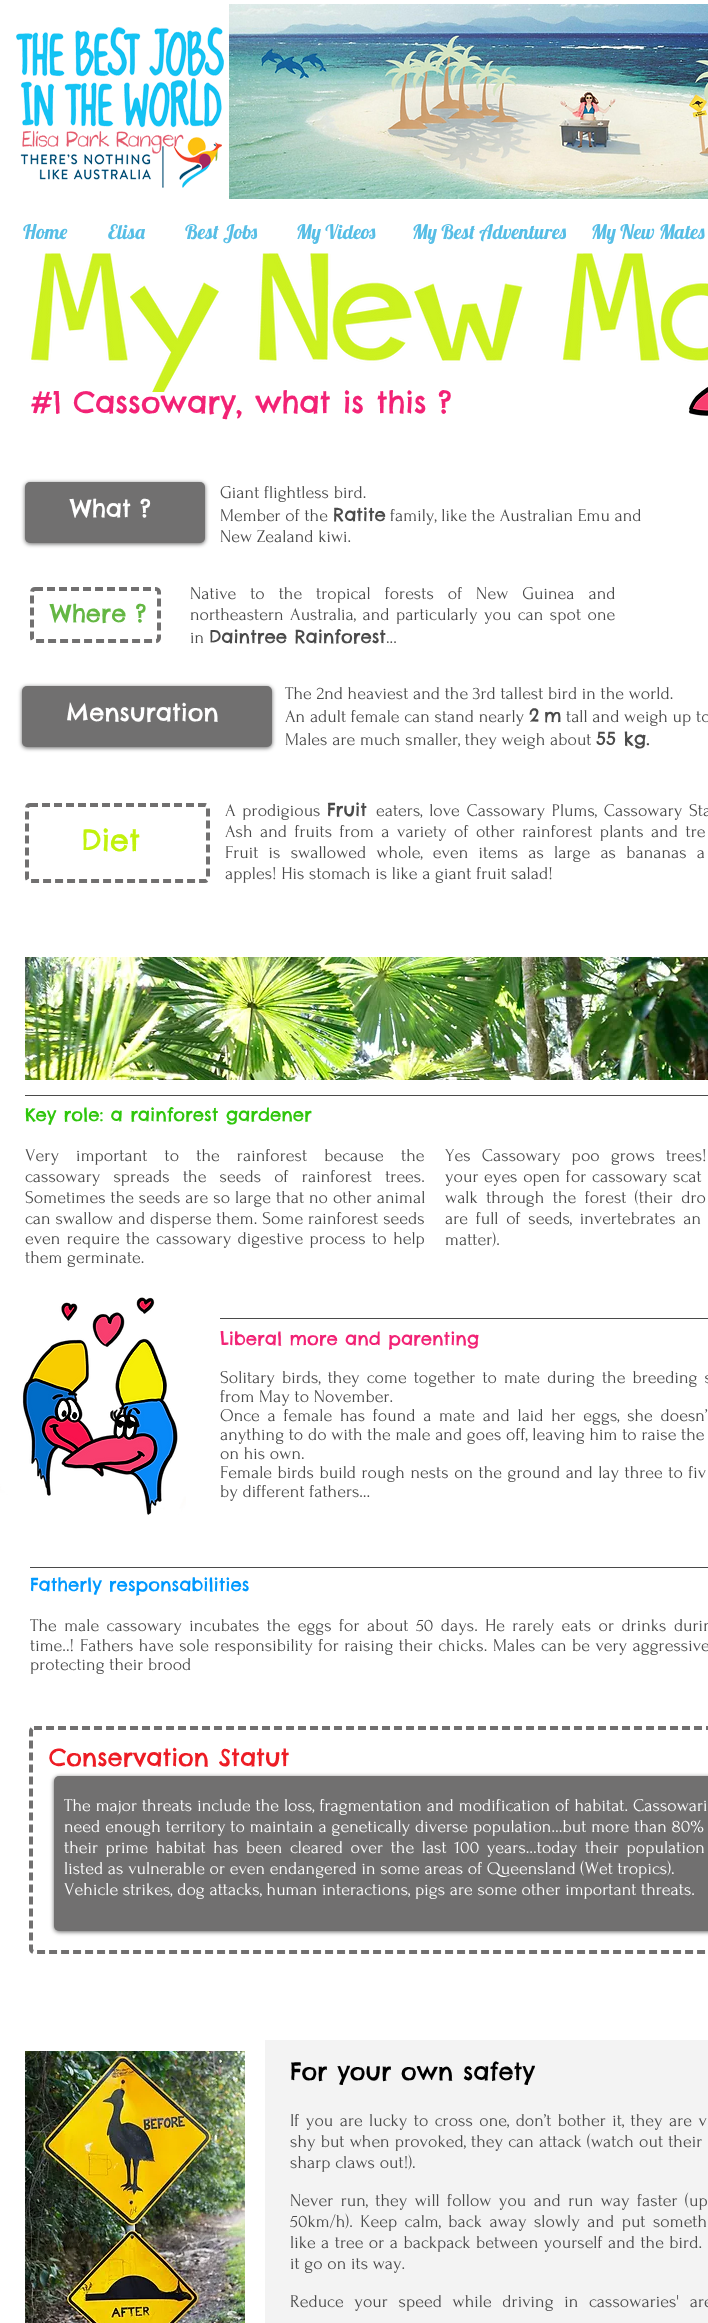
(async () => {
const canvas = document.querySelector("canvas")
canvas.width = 708
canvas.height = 2323
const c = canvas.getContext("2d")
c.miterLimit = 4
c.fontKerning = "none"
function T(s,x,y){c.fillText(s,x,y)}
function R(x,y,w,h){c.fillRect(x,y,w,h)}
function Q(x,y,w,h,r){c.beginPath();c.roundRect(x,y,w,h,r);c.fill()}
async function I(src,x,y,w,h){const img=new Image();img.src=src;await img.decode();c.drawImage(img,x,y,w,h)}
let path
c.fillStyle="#fff"
R(0,0,708,2323)
await I("1.png",16,27,208,161)
await I("2.png",229,4,479,195)
c.font="20px Lobster"
c.fillStyle="#57bee6"
T("Home",23,239)
T("Elisa",108,239)
T("Best Jobs",185,239)
T("My Videos",296,239)
T("My Best Adventures",412,239)
T("My New Mates",591,239)
await I("3.png",29,253,679,139)
c.font="30px Chelsea Market"
c.fillStyle="#f22275"
T("#1 Cassowary, what is this ?",30,413)
await I("4.png",688,387,20,29)
c.fillStyle="#00000099"
c.filter="blur(2px)"
c.beginPath()
c.roundRect(25,483,180,61,5)
c.fill()
c.filter="none"
c.fillStyle="#717070"
Q(25,482,180,61,5)
c.font="24px Chelsea Market"
c.fillStyle="#fff"
T("What ?",70,517)
c.font="18px Forum"
c.fillStyle="#4a4a4a"
T("Giant flightless bird.",220,498)
T("Member of the",220,521)
c.font="18px Chelsea Market"
T("Ratite",333,521)
c.font="18px Forum"
T("family, like the Australian Emu and",390,521)
T("New Zealand kiwi.",220,542)
path = new Path2D("M35 589h121c1.5 0 3 1.5 3 3v46c0 1.5-1.5 3-3 3h-121c-1.5 0-3-1.5-3-3v-46c0-1.5 1.5-3 3-3z")
c.strokeStyle="#717070"
c.lineWidth=4
c.setLineDash([8,4])
c.stroke(path)
c.font="24px Chelsea Market"
c.fillStyle="#64b743"
T("Where ?",50,622)
c.wordSpacing="9.25px"
c.font="18px Forum"
c.fillStyle="#4a4a4a"
T("Native to the tropical forests of New Guinea and",190,599)
c.wordSpacing="1.75px"
T("northeastern Australia, and particularly you can spot one",190,620)
c.wordSpacing="0px"
T("in",190,643)
c.font="18px Chelsea Market"
T("Daintree Rainforest",209,643)
c.font="18px Forum"
T("...",386,643)
c.fillStyle="#00000099"
c.filter="blur(2px)"
c.beginPath()
c.roundRect(22,687,250,61,5)
c.fill()
c.filter="none"
c.fillStyle="#717070"
Q(22,686,250,61,5)
c.font="24px Chelsea Market"
c.fillStyle="#fff"
T("Mensuration",66,721)
c.font="18px Forum"
c.fillStyle="#4a4a4a"
T("The 2nd heaviest and the 3rd tallest bird in the world.",285,699)
T("An adult female can stand nearly",285,722)
c.font="18px Chelsea Market"
T("2",529,722)
T("m",544,722)
c.font="18px Forum"
T("tall and weigh up to",566,722)
T("Males are much smaller, they weigh about",285,745)
c.font="18px Chelsea Market"
T("55 kg.",596,745)
path = new Path2D("M30 805h175c1.5 0 3 1.5 3 3v70c0 1.5-1.5 3-3 3h-175c-1.5 0-3-1.5-3-3v-70c0-1.5 1.5-3 3-3z")
c.stroke(path)
c.font="30px Chelsea Market"
c.fillStyle="#c2f20c"
T("Diet",81,851)
c.wordSpacing="2px"
c.font="18px Forum"
c.fillStyle="#4a4a4a"
T("A prodigious",225,816)
c.wordSpacing="0px"
c.font="18px Chelsea Market"
T("Fruit",327,816)
c.wordSpacing="2px"
c.font="18px Forum"
T("eaters, love Cassowary Plums, Cassowary Sta",376,816)
c.wordSpacing="2.75px"
T("Ash and fruits from a variety of other rainforest plants and tre",225,837)
c.wordSpacing="5.5px"
T("Fruit is swallowed whole, even items as large as bananas a",225,858)
c.wordSpacing="0px"
T("apples! His stomach is like a giant fruit salad!",225,879)
await I("5.png",25,957,683,123)
R(25,1095,683,1)
c.font="18px Chelsea Market"
c.fillStyle="#2fc60c"
T("Key role: a rainforest gardener",25,1121)
c.wordSpacing="12.5px"
c.font="18px Forum"
c.fillStyle="#4a4a4a"
T("Very important to the rainforest because the",25,1161)
c.wordSpacing="8.5px"
T("cassowary spreads the seeds of rainforest trees.",25,1182)
c.wordSpacing="0.25px"
T("Sometimes the seeds are so large that no other animal",25,1203)
T("can swallow and disperse them. Some rainforest seeds",25,1224)
c.wordSpacing="1.75px"
T("even require the cassowary digestive process to help",25,1244)
c.wordSpacing="0px"
T("them germinate.",25,1263)
c.wordSpacing="6.5px"
T("Yes Cassowary poo grows trees!",445,1161)
c.wordSpacing="1px"
T("your eyes open for cassowary scat",445,1182)
c.wordSpacing="3.75px"
T("walk through the forest (their dro",445,1203)
c.wordSpacing="3px"
T("are full of seeds, invertebrates an",445,1224)
c.wordSpacing="0px"
T("matter).",445,1245)
await I("6.png",0,1297,186,218)
R(220,1318,488,1)
c.font="18px Chelsea Market"
c.fillStyle="#f22275"
T("Liberal more and parenting",220,1345)
c.wordSpacing="2.4px"
c.font="18px Forum"
c.fillStyle="#4a4a4a"
T("Solitary birds, they come together to mate during the breeding s",220,1383)
c.wordSpacing="0px"
T("from May to November.",220,1402)
c.wordSpacing="3px"
T("Once a female has found a mate and laid her eggs, she doesn’",220,1421)
c.wordSpacing="0px"
T("anything to do with the male and goes off, leaving him to raise the",220,1440)
T("on his own.",220,1459)
c.wordSpacing="0.8px"
T("Female birds build rough nests on the ground and lay three to fiv",220,1478)
c.wordSpacing="0px"
T("by different fathers…",220,1497)
R(30,1567,678,1)
c.font="18px Chelsea Market"
c.fillStyle="#09f"
T("Fatherly responsabilities",30,1591)
c.wordSpacing="2.75px"
c.font="18px Forum"
c.fillStyle="#4a4a4a"
T("The male cassowary incubates the eggs for about 50 days.",30,1631)
T("He rarely eats or drinks durin",485,1631)
c.wordSpacing="0px"
T("time..!",30,1651)
c.wordSpacing="0.75px"
T("Fathers have sole responsibility for raising their chicks.",80,1651)
T("Males can be very aggressive",493,1651)
c.wordSpacing="0px"
T("protecting their brood",30,1670)
path = new Path2D("M34 1728h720c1.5 0 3 1.5 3 3v218c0 1.5-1.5 3-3 3h-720c-1.5 0-3-1.5-3-3v-218c0-1.5 1.5-3 3-3z")
c.stroke(path)
c.font="24px Chelsea Market"
c.fillStyle="#ed1c24"
T("Conservation Statut",49,1766)
c.fillStyle="#00000099"
c.filter="blur(2px)"
c.beginPath()
c.roundRect(54,1777,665,155,5)
c.fill()
c.filter="none"
c.fillStyle="#717070"
Q(54,1776,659,155,5)
c.wordSpacing="0.25px"
c.font="18px Forum"
c.fillStyle="#fff"
T("The major threats include the loss, fragmentation and modification of habitat. Cassowari",64,1811)
T("need enough territory to maintain a genetically diverse population…but more than 80%",64,1832)
c.wordSpacing="2.9px"
T("their prime habitat has been cleared over the last 100 years…today their population",64,1853)
c.wordSpacing="0px"
T("listed as vulnerable or even endangered in some areas of Queensland (Wet tropics).",64,1874)
T("Vehicle strikes, dog attacks, human interactions, pigs are some other important threats.",64,1895)
await I("7.png",25,2051,220,272)
c.fillStyle="#f3f3f3"
R(265,2040,443,283)
c.font="24px Chelsea Market"
c.fillStyle="#000"
T("For your own safety",290,2080)
c.wordSpacing="1.75px"
c.font="18px Forum"
c.fillStyle="#4a4a4a"
T("If you are lucky to cross one, don’t bother it, they are v",290,2126)
c.wordSpacing="0.5px"
T("shy but when provoked, they can attack (watch out their",290,2147)
c.wordSpacing="0px"
T("sharp claws out!).",290,2168)
c.wordSpacing="2.75px"
T("Never run, they will follow you and run way faster (up",290,2206)
T("50km/h). Keep calm, back away slowly and put someth",290,2227)
c.wordSpacing="0.75px"
T("like a tree or a backpack between yourself and the bird.",290,2248)
c.wordSpacing="0px"
T("it go on its way.",290,2269)
c.wordSpacing="6px"
T("Reduce your speed while driving in cassowaries' are",290,2307)
})()
